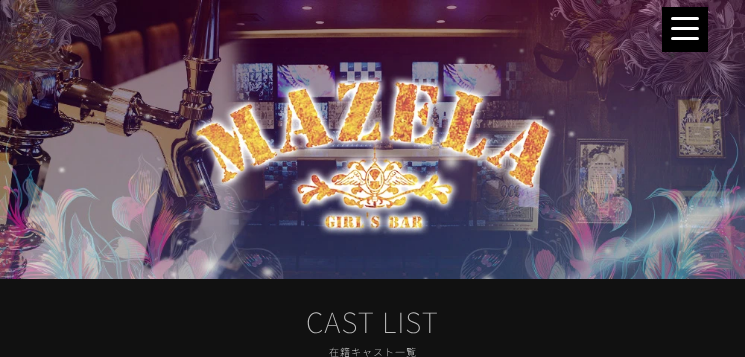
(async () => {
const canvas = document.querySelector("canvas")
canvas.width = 745
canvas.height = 357
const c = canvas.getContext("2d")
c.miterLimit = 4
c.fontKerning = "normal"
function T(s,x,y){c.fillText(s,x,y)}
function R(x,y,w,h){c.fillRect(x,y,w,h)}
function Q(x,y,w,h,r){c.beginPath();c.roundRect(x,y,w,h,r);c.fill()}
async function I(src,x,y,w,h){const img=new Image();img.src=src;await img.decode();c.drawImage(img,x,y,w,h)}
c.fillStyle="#111"
R(0,0,745,357)
await I("1.png",0,0,745,279)
c.fillStyle="#000"
R(662,7,46,45)
c.fillStyle="#fff"
Q(671,27,28,3,1.5)
Q(671,17,28,3,1.5)
Q(671,37,28,3,1.5)
c.letterSpacing="1px"
c.font="100 28px Noto Sans JP"
c.fillStyle="#bebebe"
T("CAST LIST",306,333)
c.font="100 10px Noto Sans JP"
c.fillStyle="#fff"
T("在籍キャスト一覧",329,356)
})()
